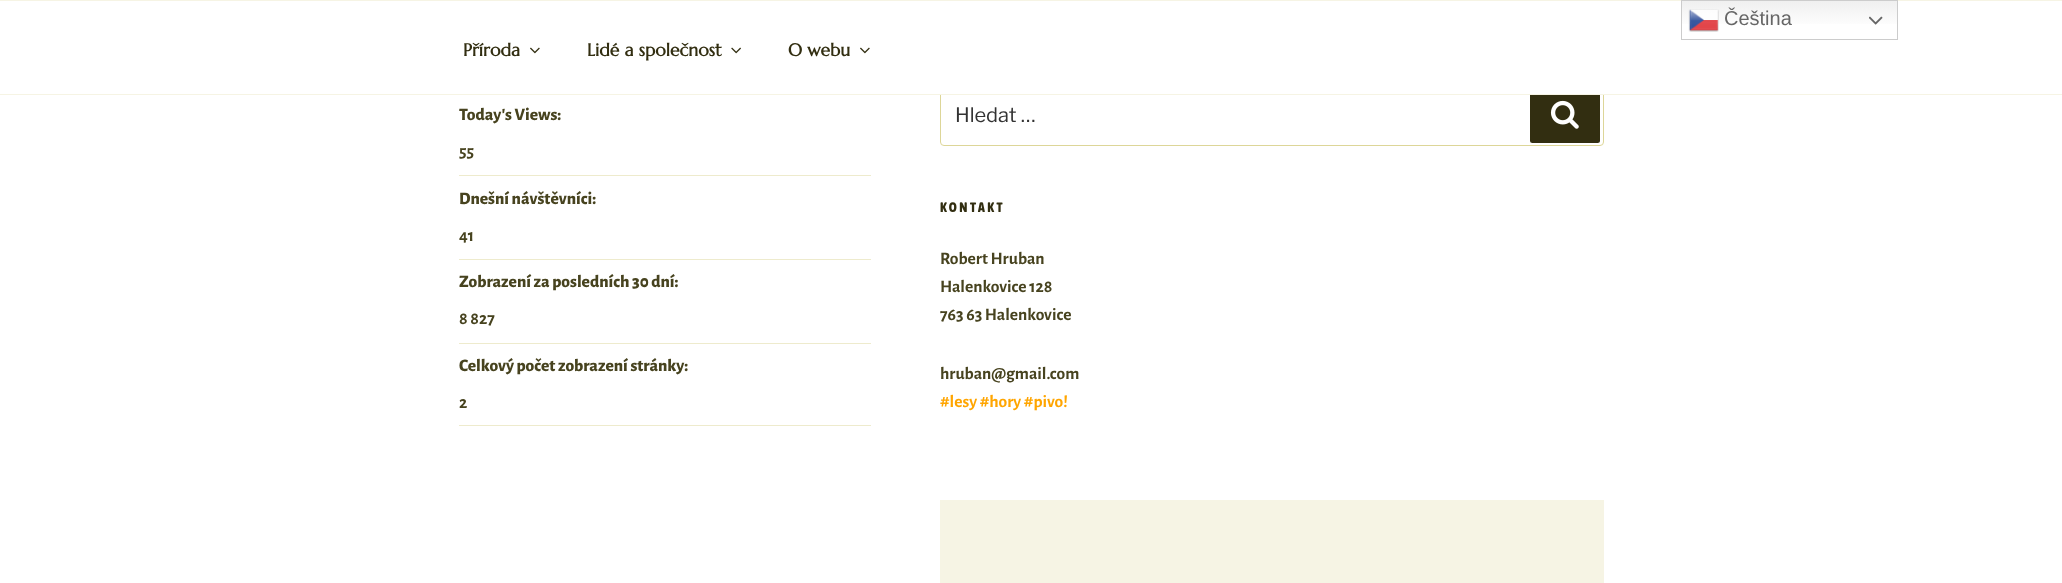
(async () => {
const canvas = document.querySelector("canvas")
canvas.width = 2062
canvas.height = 583
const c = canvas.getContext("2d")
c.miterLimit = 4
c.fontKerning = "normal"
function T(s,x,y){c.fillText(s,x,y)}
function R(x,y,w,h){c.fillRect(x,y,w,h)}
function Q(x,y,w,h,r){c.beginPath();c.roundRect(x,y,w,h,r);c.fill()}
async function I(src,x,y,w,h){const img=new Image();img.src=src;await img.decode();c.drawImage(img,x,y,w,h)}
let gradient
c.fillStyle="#fff"
R(0,0,2062,583)
gradient = c.createLinearGradient(1789,0,1789,40)
gradient.addColorStop(0,"#efefef")
gradient.addColorStop(.7,"#fff")
c.fillStyle = gradient
R(1682,1,215,23)
c.fillStyle="#f6f4e4"
R(0,0,2062,1)
c.strokeStyle="#ccc"
c.strokeRect(1681.5,.5,216,39)
await I("1.png",1688,9,31,23)
c.font="20px Liberation Sans"
c.fillStyle="#666"
T("Čeština",1724,25)
await I("2.png",1869,16,14,9)
c.beginPath()
c.roundRect(940.5,85.5,663,60,3.5)
c.strokeStyle="#ddd698"
c.stroke()
c.fillStyle="#322e11"
Q(1530,89,70,54,2.5)
c.fillStyle="#fff"
R(940,85,664,9)
c.fillStyle="#f6f4e4"
R(0,94,2062,1)
c.font="bold 17.5px Marcellus"
c.fillStyle="#322e11"
T("Příroda",463,56)
await I("3.png",530,47,10,7)
T("Lidé a společnost",587,56)
await I("4.png",731,47,10,7)
T("O webu",788,56)
await I("3.png",860,47,10,7)
c.fillStyle="#eeebcd"
R(459,175,412,1)
c.font="800 17.5px Alegreya Sans"
c.fillStyle="#47431f"
T("Today's Views:",459,120)
c.font="bold 17.5px Alegreya Sans"
T("55",459,157)
c.fillStyle="#eeebcd"
R(459,259,412,1)
c.font="800 17.5px Alegreya Sans"
c.fillStyle="#47431f"
T("Dnešní návštěvníci:",459,204)
c.font="bold 17.5px Alegreya Sans"
T("41",459,241)
c.fillStyle="#eeebcd"
R(459,343,412,1)
c.font="800 17.5px Alegreya Sans"
c.fillStyle="#47431f"
T("Zobrazení za posledních 30 dní:",459,287)
c.font="bold 17.5px Alegreya Sans"
T("8 827",459,324)
c.fillStyle="#eeebcd"
R(459,425,412,1)
c.font="800 17.5px Alegreya Sans"
c.fillStyle="#47431f"
T("Celkový počet zobrazení stránky:",459,371)
c.font="bold 17.5px Alegreya Sans"
T("2",459,408)
c.font="100 20px Libre Franklin"
c.fillStyle="#333"
T("Hledat …",955,122)
await I("5.png",1550,100,29,29)
c.letterSpacing="2.5px"
c.font="800 13.75px Asap Condensed"
c.fillStyle="#322e11"
T("KONTAKT",940,212)
c.letterSpacing="0px"
c.font="bold 17.5px Alegreya Sans"
c.fillStyle="#47431f"
T("Robert Hruban",940,264)
T("Halenkovice 128",940,292)
T("763 63 Halenkovice",940,320)
T("hruban@gmail.com",940,379)
c.fillStyle="#ffa500"
T("#lesy #hory #pivo!",940,407)
c.fillStyle="#f6f4e4"
R(940,500,664,83)
})()
